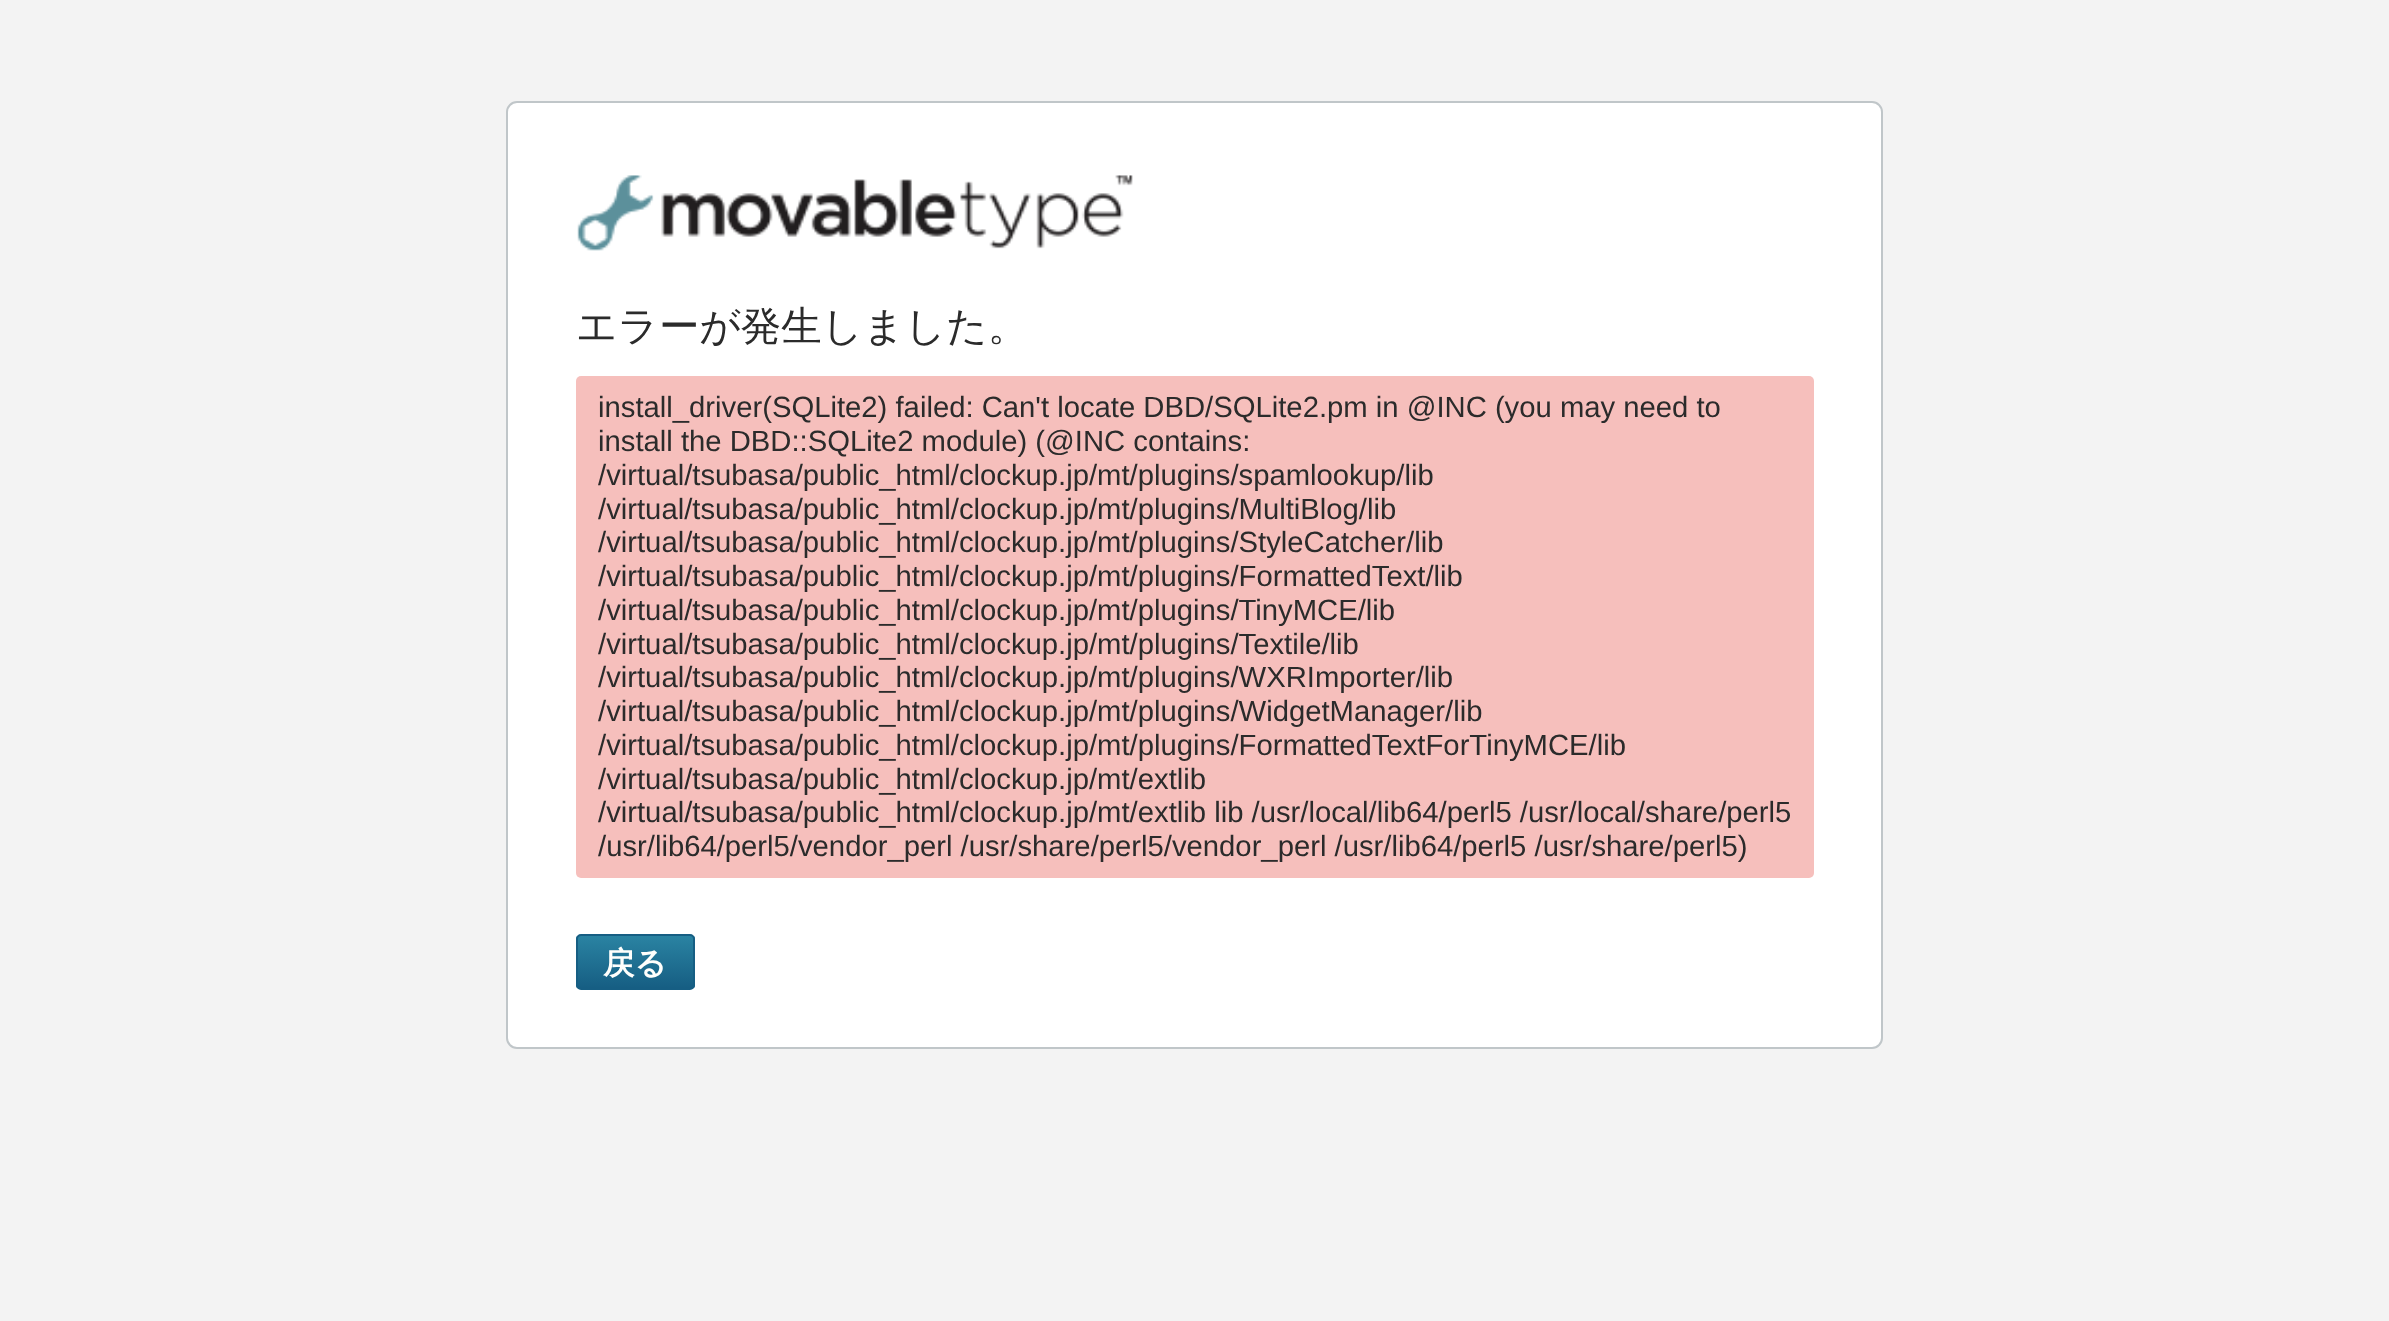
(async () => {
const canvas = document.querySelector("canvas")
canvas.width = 2389
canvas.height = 1321
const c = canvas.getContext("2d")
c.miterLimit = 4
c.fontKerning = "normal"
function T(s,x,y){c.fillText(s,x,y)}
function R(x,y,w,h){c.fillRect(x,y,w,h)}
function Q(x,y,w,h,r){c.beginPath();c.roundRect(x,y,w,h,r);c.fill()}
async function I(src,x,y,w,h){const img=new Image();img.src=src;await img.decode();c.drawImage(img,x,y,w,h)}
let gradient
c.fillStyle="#f3f3f3"
R(0,0,2389,1321)
c.fillStyle="#fff"
c.beginPath()
c.roundRect(507,102,1375,946,10)
c.fill()
c.strokeStyle="#c0c6c9"
c.lineWidth=2
c.stroke()
await I("1.png",577,175,556,76)
c.font="500 40.5px WenQuanYi Zen Hei"
c.fillStyle="#2b2b2b"
T("エラーが発生しました。",576,340)
c.fillStyle="#f6bfbc"
Q(576,376,1238,502,5)
c.font="29.25px Liberation Sans"
c.fillStyle="#2b2b2b"
T("install_driver(SQLite2) failed: Can't locate DBD/SQLite2.pm in @INC (you may need to",598,417)
T("install the DBD::SQLite2 module) (@INC contains:",598,451)
T("/virtual/tsubasa/public_html/clockup.jp/mt/plugins/spamlookup/lib",598,485)
T("/virtual/tsubasa/public_html/clockup.jp/mt/plugins/MultiBlog/lib",598,519)
T("/virtual/tsubasa/public_html/clockup.jp/mt/plugins/StyleCatcher/lib",598,552)
T("/virtual/tsubasa/public_html/clockup.jp/mt/plugins/FormattedText/lib",598,586)
T("/virtual/tsubasa/public_html/clockup.jp/mt/plugins/TinyMCE/lib",598,620)
T("/virtual/tsubasa/public_html/clockup.jp/mt/plugins/Textile/lib",598,654)
T("/virtual/tsubasa/public_html/clockup.jp/mt/plugins/WXRImporter/lib",598,687)
T("/virtual/tsubasa/public_html/clockup.jp/mt/plugins/WidgetManager/lib",598,721)
T("/virtual/tsubasa/public_html/clockup.jp/mt/plugins/FormattedTextForTinyMCE/lib",598,755)
T("/virtual/tsubasa/public_html/clockup.jp/mt/extlib",598,789)
T("/virtual/tsubasa/public_html/clockup.jp/mt/extlib lib /usr/local/lib64/perl5 /usr/local/share/perl5",598,822)
T("/usr/lib64/perl5/vendor_perl /usr/share/perl5/vendor_perl /usr/lib64/perl5 /usr/share/perl5)",598,856)
c.save()
c.beginPath()
c.roundRect(576,934,119,56,5)
c.clip()
gradient = c.createLinearGradient(636,936,636,988)
gradient.addColorStop(0,"#2a83a2")
gradient.addColorStop(1,"#165e83")
c.fillStyle = gradient
R(576,936,119,52)
c.restore()
c.beginPath()
c.roundRect(577,935,117,54,4)
c.strokeStyle="#165e83"
c.stroke()
c.font="bold 31.5px WenQuanYi Zen Hei"
c.fillStyle="#fffffc"
T("戻る",603,974)
})()
